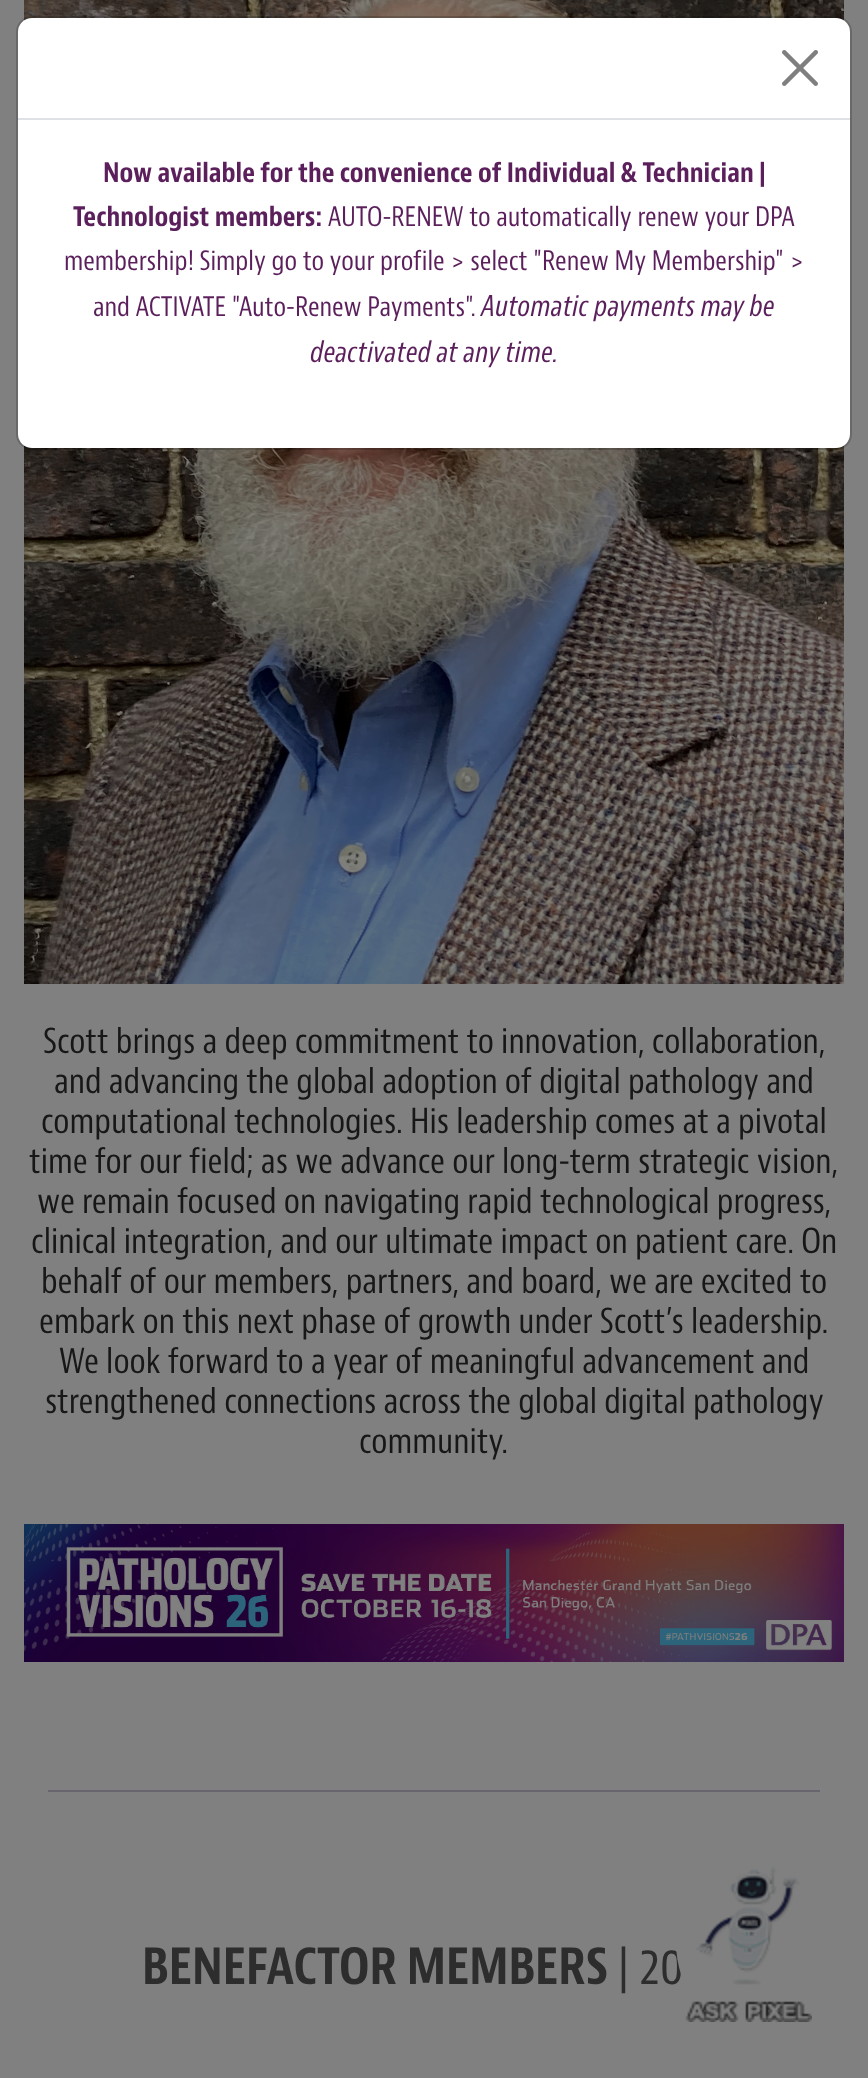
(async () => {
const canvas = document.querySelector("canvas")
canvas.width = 868
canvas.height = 2078
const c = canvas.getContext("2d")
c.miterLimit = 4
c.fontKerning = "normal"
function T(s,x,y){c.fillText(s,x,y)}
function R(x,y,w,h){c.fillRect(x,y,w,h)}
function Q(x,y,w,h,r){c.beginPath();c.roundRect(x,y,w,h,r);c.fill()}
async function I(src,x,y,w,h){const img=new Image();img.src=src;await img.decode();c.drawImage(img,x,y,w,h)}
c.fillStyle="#808080"
R(0,0,868,2078)
await I("2.png",24,0,820,984)
c.fillStyle="#fff"
Q(18,18,832,430,14)
c.beginPath()
c.roundRect(17,17,834,432,15)
c.strokeStyle="#0000002e"
c.lineWidth=2
c.stroke()
c.fillStyle="#dee2e6"
R(18,118,832,2)
await I("1.png",782,50,36,36)
c.font="bold 28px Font"
c.fillStyle="#5b1f5b"
T("Now available for the convenience of Individual & Technician |",103,182)
T("Technologist members:",73,226)
c.font="28px Font"
T("AUTO-RENEW to automatically renew your DPA",328,226)
T("membership! Simply go to your profile > select \"Renew My Membership\" >",64,270)
T("and ACTIVATE \"Auto-Renew Payments\".",93,316)
c.font="italic 28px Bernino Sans"
T("Automatic payments may be",481,316)
T("deactivated at any time.",310,362)
c.font="36px Font"
c.fillStyle="#171717"
T("Scott brings a deep commitment to innovation, collaboration,",43,1053)
T("and advancing the global adoption of digital pathology and",54,1093)
T("computational technologies. His leadership comes at a pivotal",41,1133)
T("time for our field; as we advance our long-term strategic vision,",29,1173)
T("we remain focused on navigating rapid technological progress,",37,1213)
T("clinical integration, and our ultimate impact on patient care. On",31,1253)
T("behalf of our members, partners, and board, we are excited to",41,1293)
T("embark on this next phase of growth under Scott’s leadership.",39,1333)
T("We look forward to a year of meaningful advancement and",59,1373)
T("strengthened connections across the global digital pathology",45,1413)
T("community.",359,1453)
await I("3.png",24,1524,820,138)
c.fillStyle="#68656f"
R(48,1790,772,2)
c.font="bold 52px Font"
c.fillStyle="#2d2d2d"
T("BENEFACTOR MEMBERS",142,1984)
c.font="52px Font"
T("| 20",618,1984)
c.fillStyle="#808080"
c.beginPath()
c.ellipse(748,1942,72,88,0,0,7)
c.fill()
await I("4.png",685,1866,127,156)
})()
